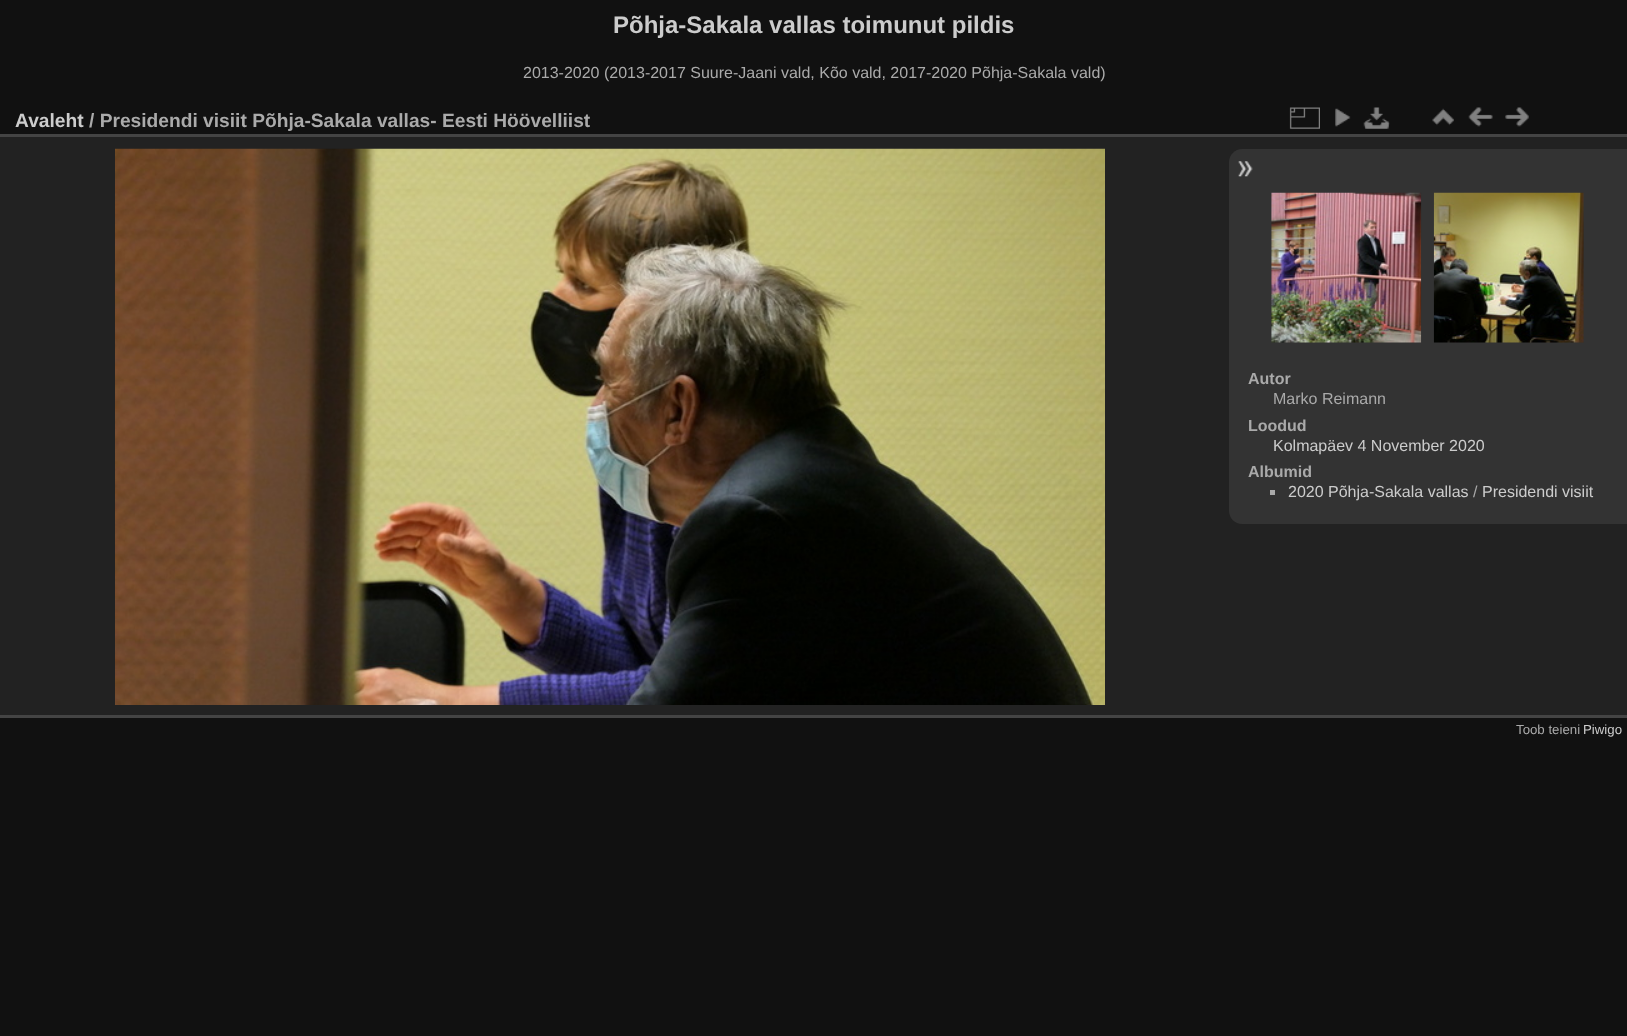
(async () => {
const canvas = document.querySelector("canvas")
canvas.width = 1627
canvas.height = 1036
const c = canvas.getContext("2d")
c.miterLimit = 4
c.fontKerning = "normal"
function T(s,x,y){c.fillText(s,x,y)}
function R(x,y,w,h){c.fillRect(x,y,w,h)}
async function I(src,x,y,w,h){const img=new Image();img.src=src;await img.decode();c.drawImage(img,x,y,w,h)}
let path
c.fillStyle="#111"
R(0,0,1627,1036)
c.font="bold 24px Liberation Sans"
c.fillStyle="#ccc"
T("Põhja-Sakala vallas toimunut pildis",613,33)
c.font="16px Liberation Sans"
c.fillStyle="#aaa"
T("2013-2020 (2013-2017 Suure-Jaani vald, Kõo vald, 2017-2020 Põhja-Sakala vald)",523,78)
c.fillStyle="#222"
R(0,137,1627,578)
c.fillStyle="#444"
R(0,715,1627,3)
R(0,134,1627,3)
c.font="bold 19.2px Liberation Sans"
c.fillStyle="#ccc"
T("Avaleht",15,127)
c.fillStyle="#aaa"
T("/ Presidendi visiit Põhja-Sakala vallas- Eesti Höövelliist",89,127)
await I("1.png",1289,107,31,22)
await I("2.png",1335,108,16,19)
await I("3.png",1363,107,27,22)
await I("4.png",1432,108,22,18)
await I("5.png",1468,107,25,20)
await I("6.png",1505,107,24,20)
await I("7.png",115,148,990,557)
c.fillStyle="#333"
path = new Path2D("M1242 149h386v375h-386c-7 0-13-6-13-13v-349c0-7 6-13 13-13z")
c.fill(path)
await I("8.png",1238,161,15,16)
await I("9.png",1271,192,151,151)
await I("10.png",1433,192,151,151)
c.font="bold 16px Liberation Sans"
c.fillStyle="#aaa"
T("Autor",1248,384)
c.font="16px Liberation Sans"
T("Marko Reimann",1273,404)
c.font="bold 16px Liberation Sans"
T("Loodud",1248,431)
c.font="16px Liberation Sans"
c.fillStyle="#ccc"
T("Kolmapäev 4 November 2020",1273,451)
c.font="bold 16px Liberation Sans"
c.fillStyle="#aaa"
T("Albumid",1248,477)
R(1270,490,5,5)
c.font="16px Liberation Sans"
c.fillStyle="#ccc"
T("2020 Põhja-Sakala vallas",1288,497)
c.fillStyle="#aaa"
T("/",1473,497)
c.fillStyle="#ccc"
T("Presidendi visiit",1482,497)
c.font="13.25px Liberation Sans"
c.fillStyle="#aaa"
T("Toob teieni",1516,734)
c.fillStyle="#ccc"
T("Piwigo",1583,734)
})()
